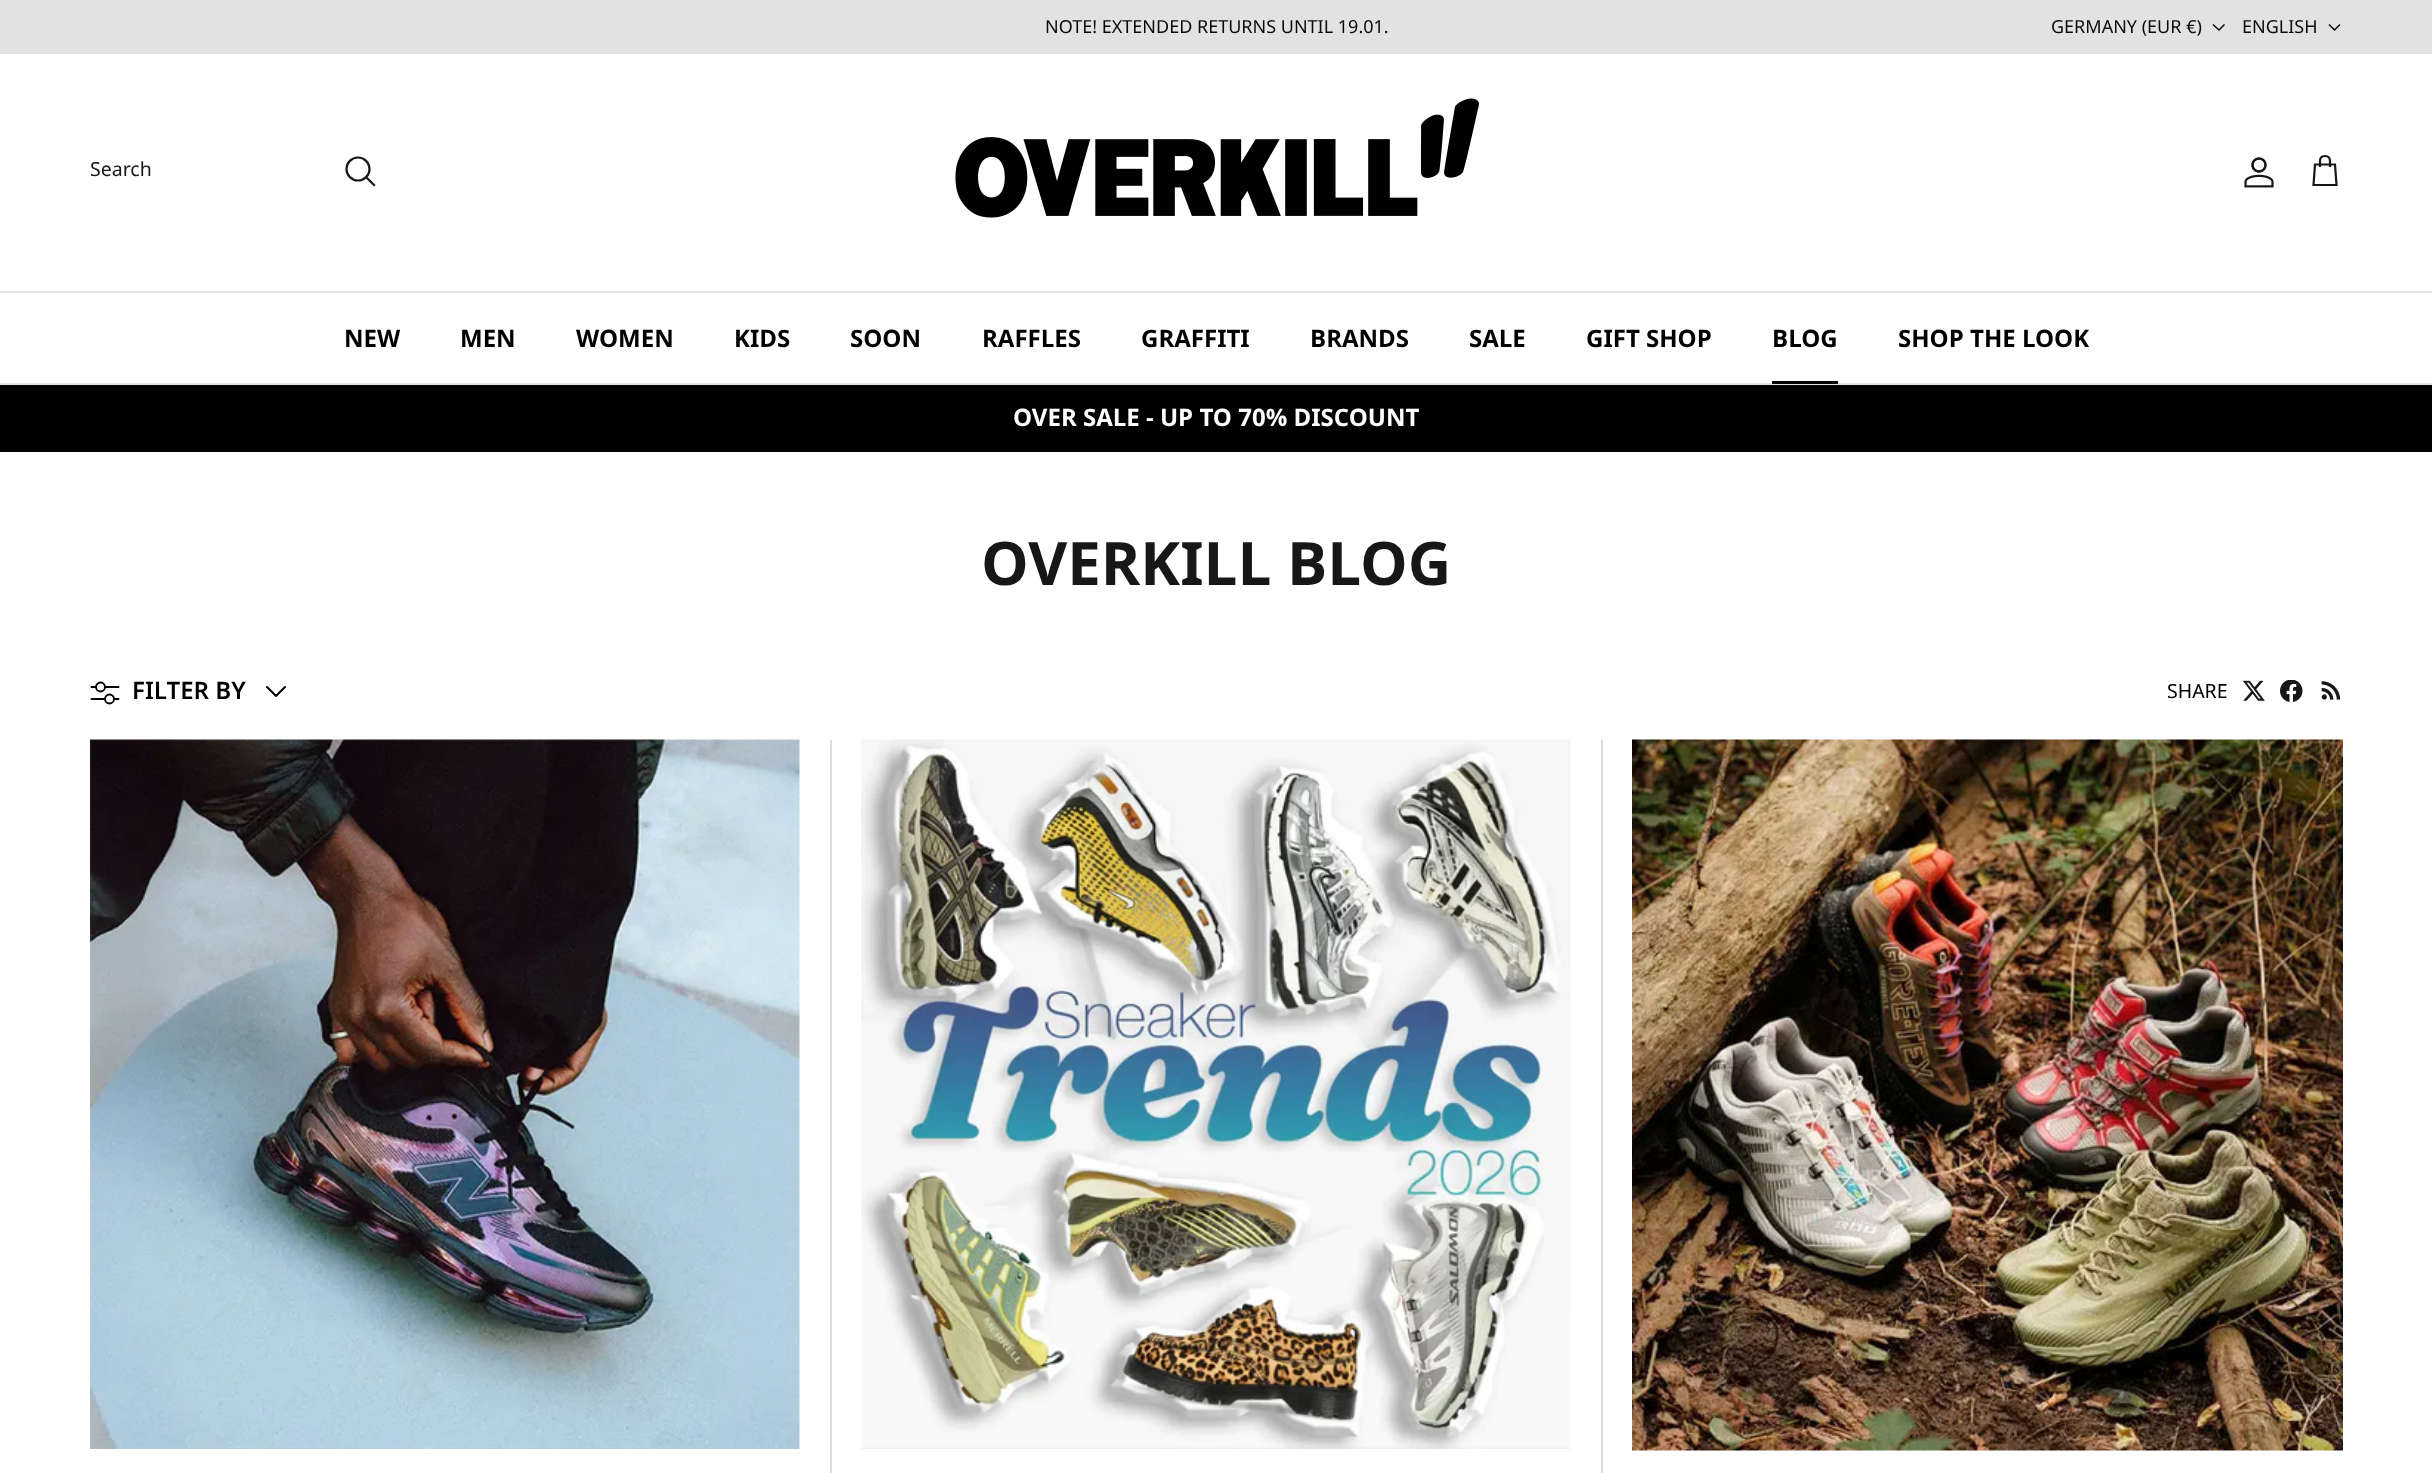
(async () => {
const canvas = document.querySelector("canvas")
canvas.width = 2432
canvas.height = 1473
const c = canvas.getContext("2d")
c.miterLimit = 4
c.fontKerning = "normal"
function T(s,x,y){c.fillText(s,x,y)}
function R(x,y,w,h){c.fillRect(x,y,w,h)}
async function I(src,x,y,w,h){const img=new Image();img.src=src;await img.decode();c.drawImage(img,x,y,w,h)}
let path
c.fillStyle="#fff"
R(0,0,2432,1473)
c.fillStyle="#e2e2e2"
R(0,0,2432,54)
c.font="18px Noto Sans"
c.fillStyle="#0a0a0a"
T("NOTE! EXTENDED RETURNS UNTIL 19.01.",1045,33)
T("GERMANY (EUR €)",2051,33)
path = new Path2D("M2224.5 24.5l-5.5 5.5l-6-5.5")
c.strokeStyle="#0a0a0a"
c.lineWidth=1.5
c.stroke(path)
T("ENGLISH",2242,33)
path = new Path2D("M2340 24.5l-5.5 5.5l-5.5-5.5")
c.stroke(path)
c.fillStyle="#e2e2e2"
R(0,291,2432,2)
c.font="19.5px Noto Sans"
c.fillStyle="#171717"
T("Search",90,176)
c.beginPath()
c.arc(358,169,11.5,0,7)
c.strokeStyle="#171717"
c.lineWidth=2.2
c.stroke()
path = new Path2D("M367.5 178.5l6.5 6.5")
c.lineCap="square"
c.stroke(path)
await I("1.png",955,98,524,120)
await I("2.png",2244,157,30,31)
path = new Path2D("M2330 167v-6c0-3-2-5-5-5c-3 0-5 2-5 5v6m-5-2.5h20l1.5 20.5h-23z")
c.lineCap="butt"
c.stroke(path)
c.fillStyle="#e2e2e2"
R(0,383,2432,2)
c.font="bold 24px Noto Sans"
c.fillStyle="#000"
T("NEW",344,347)
T("MEN",460,347)
T("WOMEN",576,347)
T("KIDS",734,347)
T("SOON",850,347)
T("RAFFLES",982,347)
T("GRAFFITI",1141,347)
T("BRANDS",1310,347)
T("SALE",1469,347)
T("GIFT SHOP",1586,347)
T("BLOG",1772,347)
R(1772,381,66,3)
T("SHOP THE LOOK",1898,347)
R(0,385,2432,67)
c.fillStyle="#fff"
T("OVER SALE - UP TO 70% DISCOUNT",1013,426)
c.font="bold 60px Noto Sans"
c.fillStyle="#171717"
T("OVERKILL BLOG",981,585)
path = new Path2D("M91.5 687h27m-27 12h27")
c.strokeStyle="#000"
c.lineWidth=1.9
c.lineCap="round"
c.lineJoin="round"
c.stroke(path)
c.fillStyle="#fff"
c.beginPath()
c.arc(100.5,687,4.5,0,7)
c.fill()
c.stroke()
c.beginPath()
c.arc(109.5,699,4.5,0,7)
c.fill()
c.stroke()
c.font="600 24px Noto Sans"
c.fillStyle="#000"
T("FILTER BY",132,699)
path = new Path2D("M267 687l9 9l9-9")
c.lineWidth=2
c.stroke(path)
c.font="19.5px Noto Sans"
T("SHARE",2167,698)
await I("3.png",2243,680,22,21)
await I("4.png",2280,680,23,22)
await I("5.png",2321,681,20,19)
c.fillStyle="#dbdbdb"
R(830,740,2,733)
await I("6.png",90,739,710,710)
R(1601,740,2,733)
await I("7.png",861,739,710,710)
await I("8.png",1632,739,711,712)
})()
